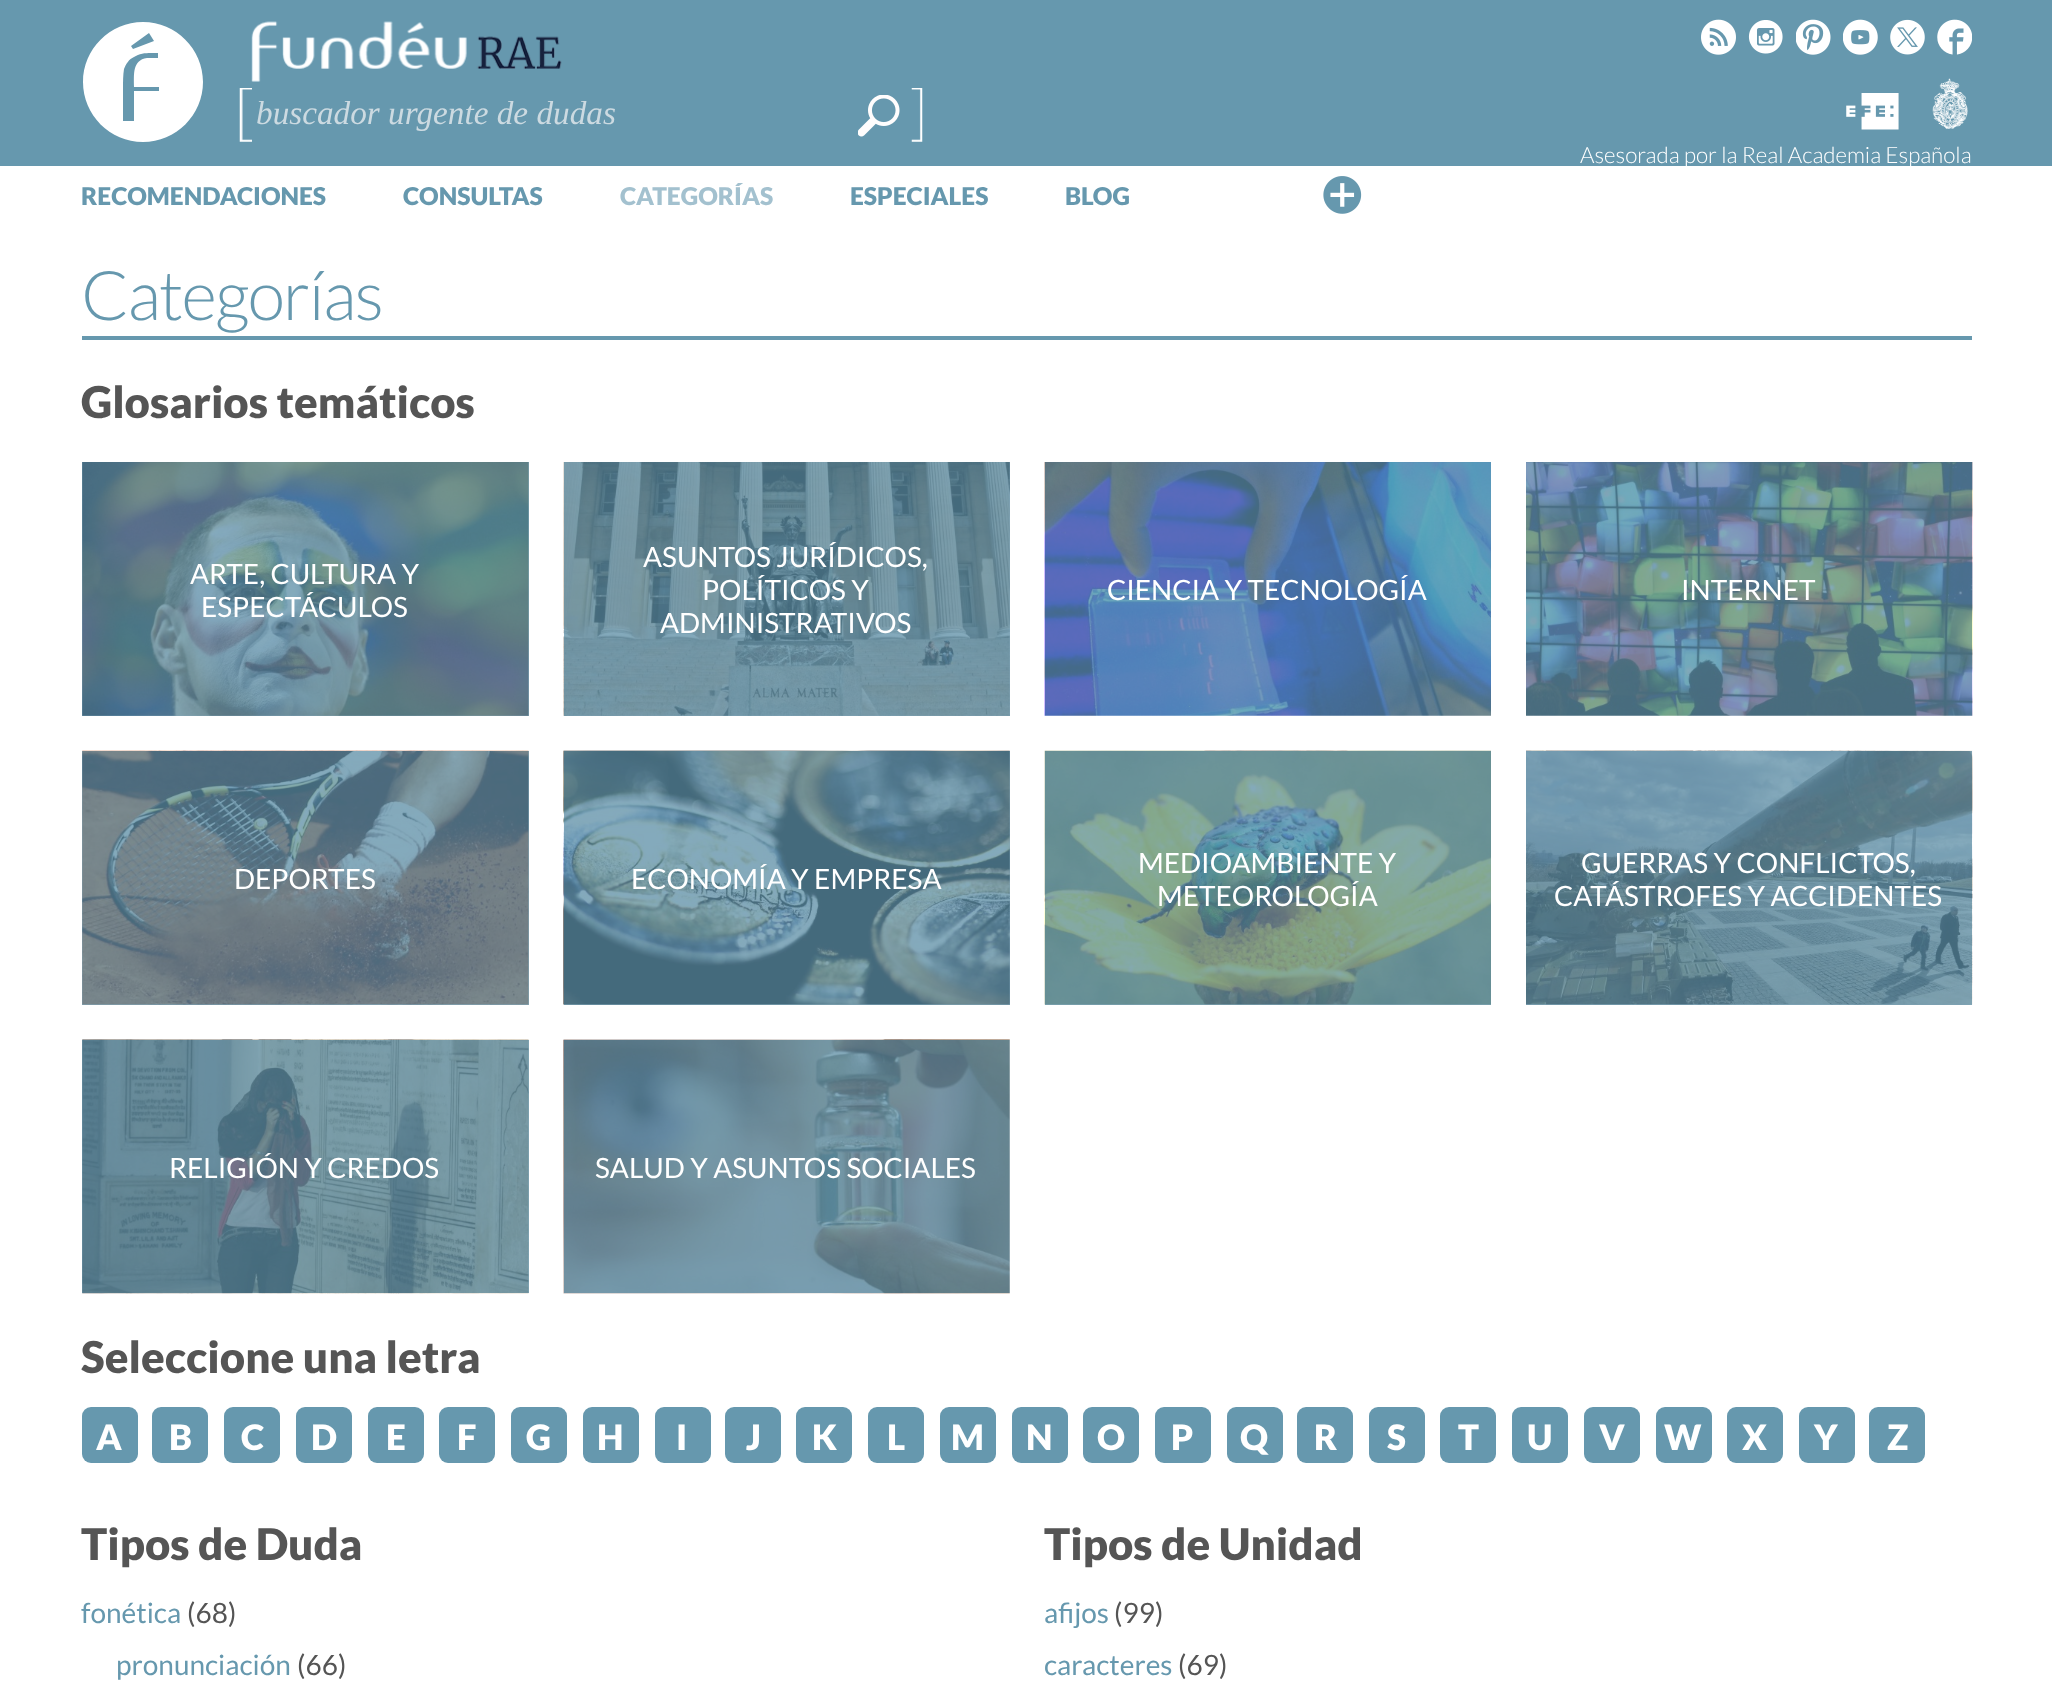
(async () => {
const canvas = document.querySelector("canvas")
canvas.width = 2052
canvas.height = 1694
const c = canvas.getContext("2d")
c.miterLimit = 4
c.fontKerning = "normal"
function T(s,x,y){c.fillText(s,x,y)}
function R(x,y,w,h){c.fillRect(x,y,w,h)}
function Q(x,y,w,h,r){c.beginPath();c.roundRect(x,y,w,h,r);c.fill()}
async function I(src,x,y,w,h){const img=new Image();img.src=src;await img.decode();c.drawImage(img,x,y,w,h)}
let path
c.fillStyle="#fff"
R(0,0,2052,1694)
c.fillStyle="#84aabc"
R(82,1040,447,253)
R(1526,1004,446,1)
R(1045,1004,446,1)
R(564,751,446,254)
R(82,751,447,254)
R(564,462,446,254)
R(82,462,447,254)
c.fillStyle="#6698ae"
R(0,0,2052,166)
c.fillStyle="#fff"
path = new Path2D("M143 22c-33 0-60 27-60 60c0 33 27 60 60 60c33 0 60-27 60-60c0-33-27-60-60-60zm6 11l5 8l-21 8l-2-3zm10 58h-25v30h-11v-33c0-6 0-13 1-19c2-5 5-10 10-12c7-5 16-4 24-4v5h-11c-15 2-13 17-13 29h25z")
c.fill(path)
await I("1.png",251,21,311,61)
await I("2.png",239,88,684,54)
c.font="italic 33.25px Tinos"
c.fillStyle="#ccdae1"
T("buscador urgente de dudas",256,124)
await I("3.png",858,95,42,42)
await I("4.png",1701,19,35,36)
await I("5.png",1748,20,35,34)
await I("6.png",1796,19,35,36)
await I("7.png",1843,19,35,36)
await I("8.png",1890,19,35,36)
await I("9.png",1937,19,35,36)
await I("10.png",1846,93,53,37)
await I("11.png",1932,78,36,51)
c.font="300 22.4px Lato"
c.fillStyle="#fff"
T("Asesorada por la Real Academia Española",1580,163)
c.font="900 24.5px Lato"
c.fillStyle="#6698ae"
T("RECOMENDACIONES",81,205)
T("CONSULTAS",403,205)
c.fillStyle="#a3c1cf"
T("CATEGORÍAS",620,205)
c.fillStyle="#6698ae"
T("ESPECIALES",850,205)
T("BLOG",1065,205)
await I("12.png",1323,176,39,38)
R(82,336,1890,4)
c.letterSpacing="-1.75px"
c.font="300 68.5px Lato"
T("Categorías",81,320)
c.letterSpacing="0px"
c.font="900 43.75px Lato"
c.fillStyle="#555"
T("Glosarios temáticos",81,418)
await I("13.png",82,462,447,254)
c.font="28px Lato"
c.fillStyle="#fff"
T("ARTE, CULTURA Y",190,584)
T("ESPECTÁCULOS",201,617)
await I("14.png",563,462,447,254)
T("ASUNTOS JURÍDICOS,",643,567)
T("POLÍTICOS Y",702,600)
T("ADMINISTRATIVOS",660,633)
await I("15.png",1044,462,447,254)
T("CIENCIA Y TECNOLOGÍA",1107,600)
await I("16.png",1526,462,447,254)
T("INTERNET",1681,600)
await I("17.png",82,750,447,255)
T("DEPORTES",234,889)
await I("18.png",563,750,447,255)
T("ECONOMÍA Y EMPRESA",631,889)
await I("19.png",1044,750,447,255)
T("MEDIOAMBIENTE Y",1138,873)
T("METEOROLOGÍA",1157,906)
await I("20.png",1526,750,447,255)
T("GUERRAS Y CONFLICTOS,",1581,873)
T("CATÁSTROFES Y ACCIDENTES",1554,906)
await I("21.png",82,1039,447,255)
T("RELIGIÓN Y CREDOS",169,1178)
await I("22.png",563,1039,447,255)
T("SALUD Y ASUNTOS SOCIALES",595,1178)
c.font="900 43.75px Lato"
c.fillStyle="#555"
T("Seleccione una letra",81,1373)
c.fillStyle="#6698ae"
Q(82,1407,56,56,9)
c.font="900 35px Lato"
c.fillStyle="#fff"
T("A",96,1450)
c.fillStyle="#6698ae"
Q(152,1407,56,56,9)
c.fillStyle="#fff"
T("B",169,1450)
c.fillStyle="#6698ae"
Q(224,1407,56,56,9)
c.fillStyle="#fff"
T("C",241,1450)
c.fillStyle="#6698ae"
Q(296,1407,56,56,9)
c.fillStyle="#fff"
T("D",311,1450)
c.fillStyle="#6698ae"
Q(368,1407,56,56,9)
c.fillStyle="#fff"
T("E",386,1450)
c.fillStyle="#6698ae"
Q(439,1407,56,56,9)
c.fillStyle="#fff"
T("F",457,1450)
c.fillStyle="#6698ae"
Q(511,1407,56,56,9)
c.fillStyle="#fff"
T("G",526,1450)
c.fillStyle="#6698ae"
Q(583,1407,56,56,9)
c.fillStyle="#fff"
T("H",597,1450)
c.fillStyle="#6698ae"
Q(655,1407,56,56,9)
c.fillStyle="#fff"
T("I",676,1450)
c.fillStyle="#6698ae"
Q(725,1407,56,56,9)
c.fillStyle="#fff"
T("J",746,1450)
c.fillStyle="#6698ae"
Q(796,1407,56,56,9)
c.fillStyle="#fff"
T("K",812,1450)
c.fillStyle="#6698ae"
Q(868,1407,56,56,9)
c.fillStyle="#fff"
T("L",887,1450)
c.fillStyle="#6698ae"
Q(940,1407,56,56,9)
c.fillStyle="#fff"
T("M",951,1450)
c.fillStyle="#6698ae"
Q(1012,1407,56,56,9)
c.fillStyle="#fff"
T("N",1026,1450)
c.fillStyle="#6698ae"
Q(1083,1407,56,56,9)
c.fillStyle="#fff"
T("O",1097,1450)
c.fillStyle="#6698ae"
Q(1155,1407,56,56,9)
c.fillStyle="#fff"
T("P",1171,1450)
c.fillStyle="#6698ae"
Q(1227,1407,56,56,9)
c.fillStyle="#fff"
T("Q",1240,1450)
c.fillStyle="#6698ae"
Q(1297,1407,56,56,9)
c.fillStyle="#fff"
T("R",1314,1450)
c.fillStyle="#6698ae"
Q(1369,1407,56,56,9)
c.fillStyle="#fff"
T("S",1387,1450)
c.fillStyle="#6698ae"
Q(1440,1407,56,56,9)
c.fillStyle="#fff"
T("T",1458,1450)
c.fillStyle="#6698ae"
Q(1512,1407,56,56,9)
c.fillStyle="#fff"
T("U",1527,1450)
c.fillStyle="#6698ae"
Q(1584,1407,56,56,9)
c.fillStyle="#fff"
T("V",1599,1450)
c.fillStyle="#6698ae"
Q(1656,1407,56,56,9)
c.fillStyle="#fff"
T("W",1664,1450)
c.fillStyle="#6698ae"
Q(1727,1407,56,56,9)
c.fillStyle="#fff"
T("X",1742,1450)
c.fillStyle="#6698ae"
Q(1799,1407,56,56,9)
c.fillStyle="#fff"
T("Y",1814,1450)
c.fillStyle="#6698ae"
Q(1869,1407,56,56,9)
c.fillStyle="#fff"
T("Z",1887,1450)
c.font="900 43.75px Lato"
c.fillStyle="#555"
T("Tipos de Duda",81,1560)
c.font="28px Lato"
c.fillStyle="#6698ae"
T("fonética",81,1623)
c.fillStyle="#555"
T("(68)",187,1623)
c.fillStyle="#6698ae"
T("pronunciación",116,1675)
c.fillStyle="#555"
T("(66)",297,1675)
c.font="900 43.75px Lato"
T("Tipos de Unidad",1044,1560)
c.font="28px Lato"
c.fillStyle="#6698ae"
T("afijos",1044,1623)
c.fillStyle="#555"
T("(99)",1114,1623)
c.fillStyle="#6698ae"
T("caracteres",1044,1675)
c.fillStyle="#555"
T("(69)",1178,1675)
})()
